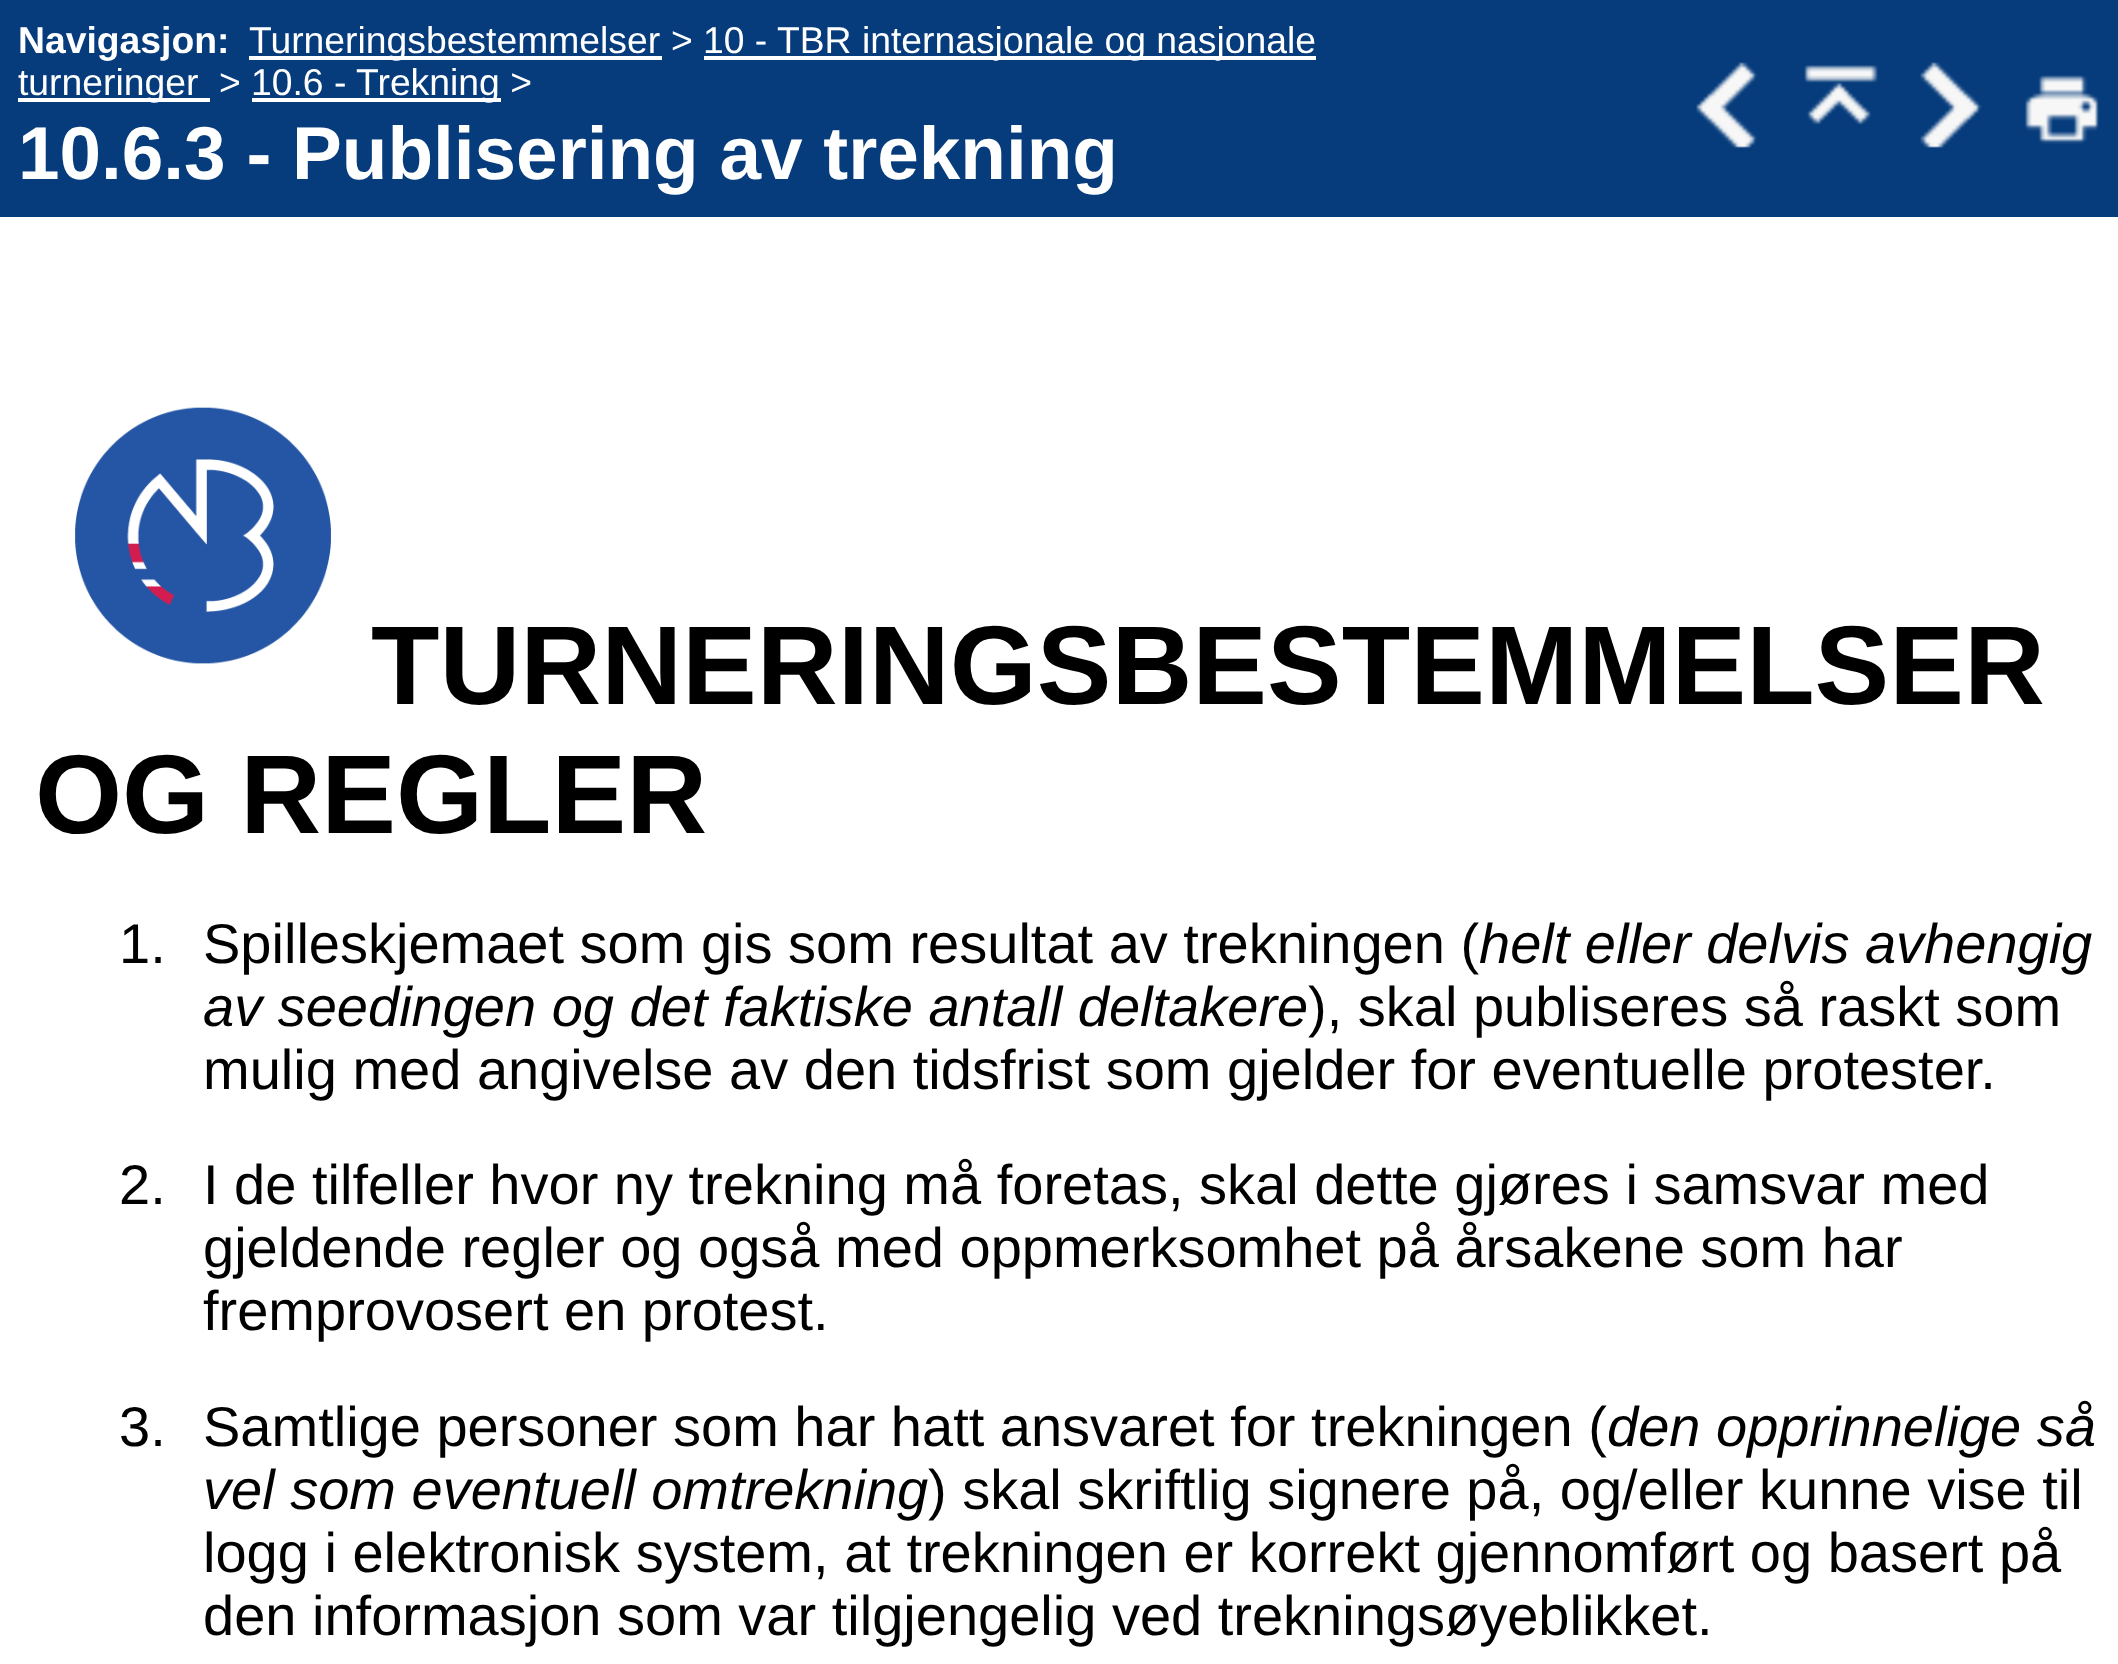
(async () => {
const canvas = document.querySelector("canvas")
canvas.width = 2118
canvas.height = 1664
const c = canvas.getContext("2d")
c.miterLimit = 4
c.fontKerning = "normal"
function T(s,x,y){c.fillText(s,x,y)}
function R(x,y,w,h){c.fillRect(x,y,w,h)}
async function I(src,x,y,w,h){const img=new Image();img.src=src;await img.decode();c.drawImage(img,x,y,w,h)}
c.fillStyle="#fff"
R(0,0,2118,1664)
c.fillStyle="#063c7c"
R(0,0,2118,217)
c.font="bold 37.3px Liberation Sans"
c.fillStyle="#fff"
T("Navigasjon:",18,53)
R(249,56,413,4)
c.font="37.3px Liberation Sans"
T("Turneringsbestemmelser",249,53)
T(">",671,53)
R(704,56,612,4)
T("10 - TBR internasjonale og nasjonale",703,53)
R(18,98,192,4)
T("turneringer",18,95)
T(">",219,95)
R(252,98,249,4)
T("10.6 - Trekning >",251,95)
c.font="bold 74.7px Liberation Sans"
T("10.6.3 - Publisering av trekning",18,179)
await I("1.png",1696,62,62,86)
await I("2.png",1804,65,74,60)
await I("3.png",1920,62,62,86)
await I("4.png",2025,75,74,69)
await I("5.png",75,407,256,257)
c.font="bold 112px Liberation Sans"
c.fillStyle="#000"
T("TURNERINGSBESTEMMELSER",371,704)
T("OG REGLER",35,833)
c.font="56px Liberation Sans"
T("1.",119,963)
T("Spilleskjemaet som gis som resultat av trekningen (",203,963)
c.font="italic 56px Liberation Sans"
T("helt eller delvis avhengig",1479,963)
T("av seedingen og det faktiske antall deltakere",203,1026)
c.font="56px Liberation Sans"
T("), skal publiseres så raskt som",1308,1026)
T("mulig med angivelse av den tidsfrist som gjelder for eventuelle protester.",203,1089)
T("2.",119,1204)
T("I de tilfeller hvor ny trekning må foretas, skal dette gjøres i samsvar med",203,1204)
T("gjeldende regler og også med oppmerksomhet på årsakene som har",203,1267)
T("fremprovosert en protest.",203,1330)
T("3.",119,1446)
T("Samtlige personer som har hatt ansvaret for trekningen (",203,1446)
c.font="italic 56px Liberation Sans"
T("den opprinnelige så",1607,1446)
T("vel som eventuell omtrekning",203,1509)
c.font="56px Liberation Sans"
T(") skal skriftlig signere på, og/eller kunne vise til",928,1509)
T("logg i elektronisk system, at trekningen er korrekt gjennomført og basert på",203,1572)
T("den informasjon som var tilgjengelig ved trekningsøyeblikket.",203,1635)
})()
